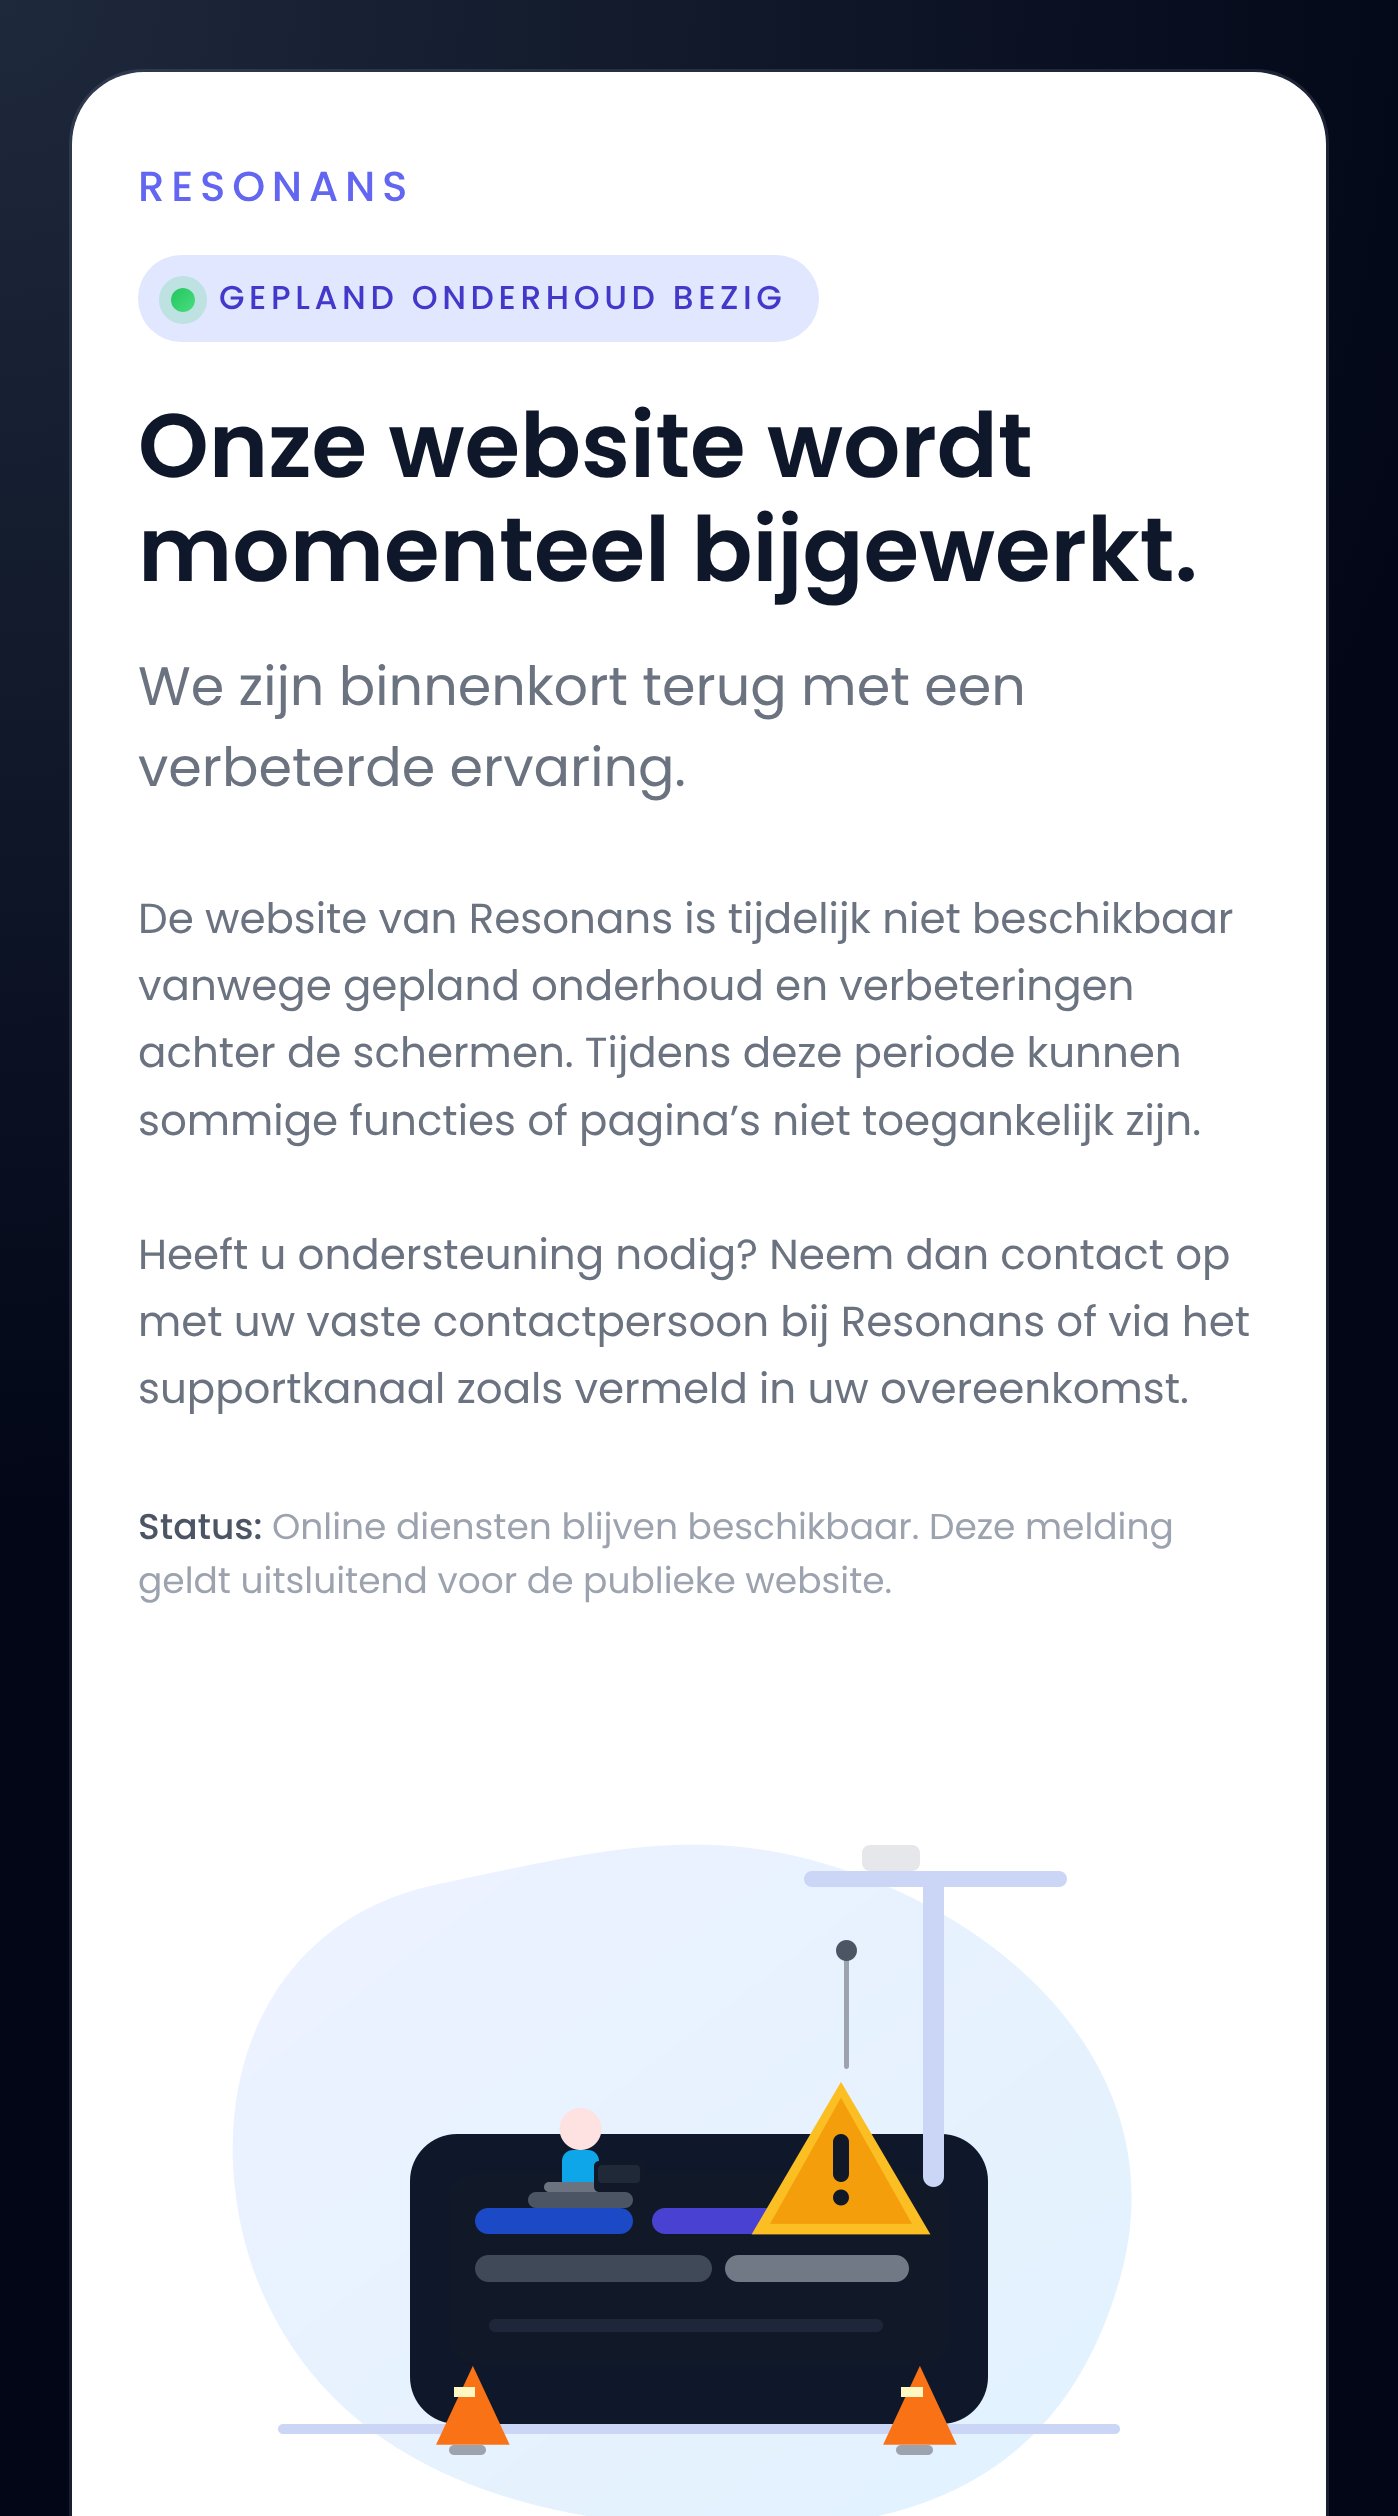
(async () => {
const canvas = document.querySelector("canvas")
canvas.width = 1398
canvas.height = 2516
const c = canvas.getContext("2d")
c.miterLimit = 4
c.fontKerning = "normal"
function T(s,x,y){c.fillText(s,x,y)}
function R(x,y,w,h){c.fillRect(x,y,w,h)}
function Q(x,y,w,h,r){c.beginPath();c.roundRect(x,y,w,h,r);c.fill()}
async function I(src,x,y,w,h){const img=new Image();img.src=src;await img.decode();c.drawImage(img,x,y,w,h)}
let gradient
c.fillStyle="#fff"
R(0,0,1398,2516)
gradient = c.createRadialGradient(0,0,0,0,0,3064)
gradient.addColorStop(0,"#1e293b")
gradient.addColorStop(.5,"#020617")
gradient.addColorStop(1,"#020617")
c.fillStyle = gradient
R(0,0,1398,2516)
c.beginPath()
c.roundRect(70.5,70.5,1257,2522,73.5)
c.strokeStyle="#94a3b829"
c.lineWidth=3
c.stroke()
c.fillStyle="#fff"
Q(72,72,1254,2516,72)
c.letterSpacing="6.75px"
c.font="500 42px Poppins"
c.fillStyle="#6366f1"
T("RESONANS",138,201)
c.fillStyle="#e0e7ff"
Q(138,255,681,87,43.5)
c.beginPath()
c.arc(183,300,18,0,7)
c.strokeStyle="#bee1e2"
c.lineWidth=12
c.stroke()
gradient = c.createLinearGradient(171,288,195,312)
gradient.addColorStop(0,"#22c55e")
gradient.addColorStop(1,"#4ade80")
c.fillStyle = gradient
c.beginPath()
c.arc(183,300,12,0,7)
c.fill()
c.letterSpacing="4.6px"
c.font="500 33px Poppins"
c.fillStyle="#4338ca"
T("GEPLAND ONDERHOUD BEZIG",219,309)
c.letterSpacing="0px"
c.font="600 90px Poppins"
c.fillStyle="#0f172a"
T("Onze website wordt",138,477)
T("momenteel bijgewerkt.",138,581)
c.font="54px Poppins"
c.fillStyle="#6b7280"
T("We zijn binnenkort terug met een",138,705)
T("verbeterde ervaring.",138,786)
c.font="42px Poppins"
T("De website van Resonans is tijdelijk niet beschikbaar",138,933)
T("vanwege gepland onderhoud en verbeteringen",138,1000)
T("achter de schermen. Tijdens deze periode kunnen",138,1067)
T("sommige functies of pagina’s niet toegankelijk zijn.",138,1135)
T("Heeft u ondersteuning nodig? Neem dan contact op",138,1269)
T("met uw vaste contactpersoon bij Resonans of via het",138,1336)
T("supportkanaal zoals vermeld in uw overeenkomst.",138,1403)
c.font="500 36px Poppins"
c.fillStyle="#4b5563"
T("Status:",138,1539)
c.font="36px Poppins"
c.fillStyle="#9ca3af"
T("Online diensten blijven beschikbaar. Deze melding",272,1539)
T("geldt uitsluitend voor de publieke website.",138,1593)
await I("1.png",232,1844,900,672)
})()
